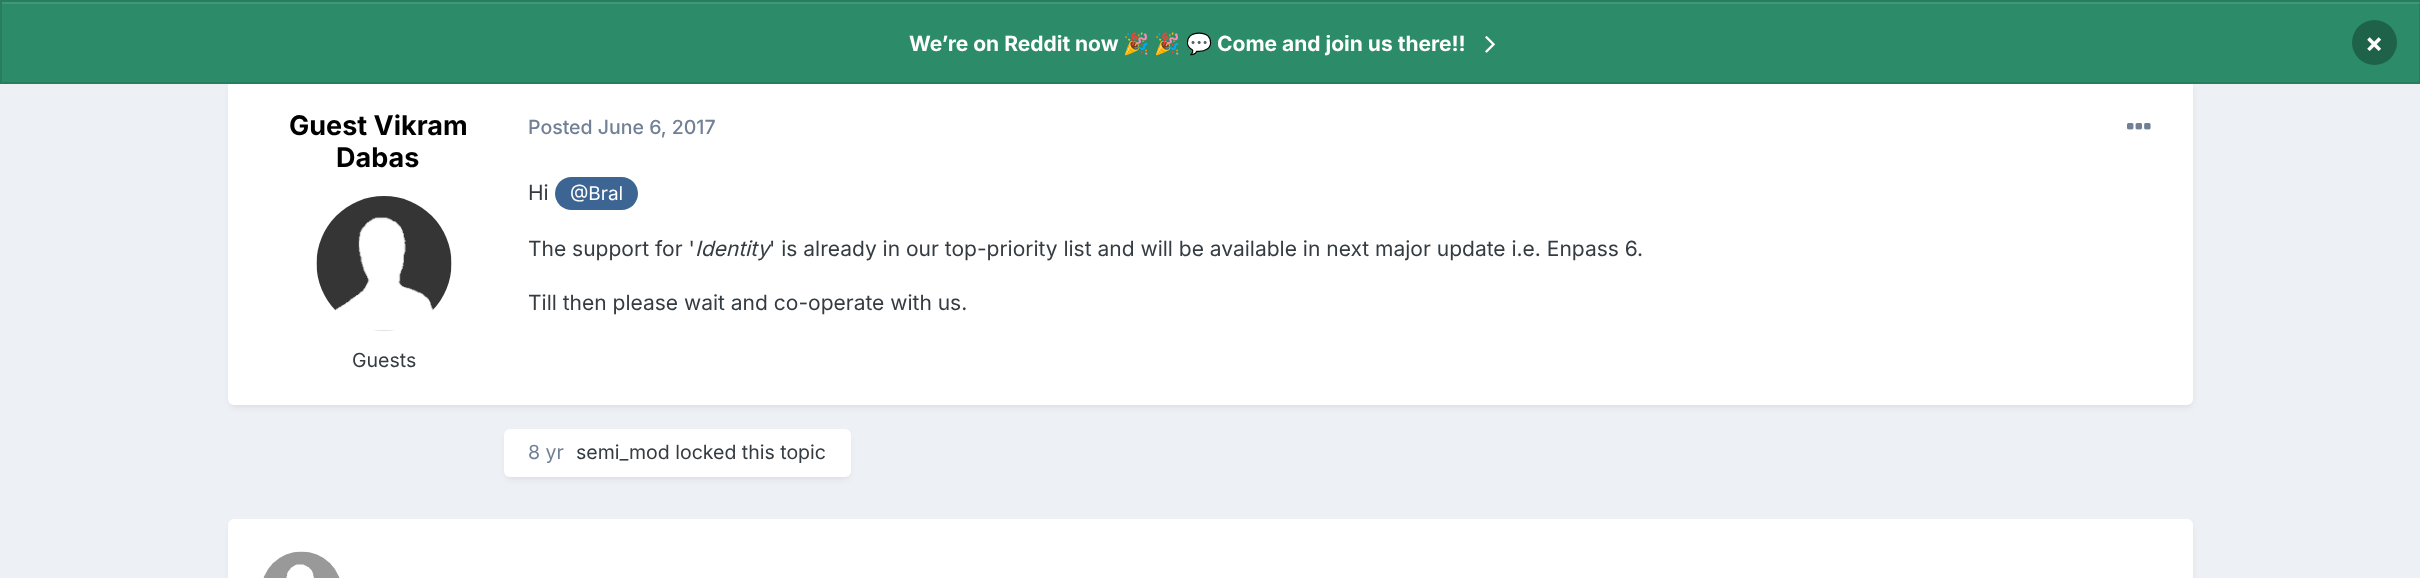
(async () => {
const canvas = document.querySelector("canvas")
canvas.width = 2420
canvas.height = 578
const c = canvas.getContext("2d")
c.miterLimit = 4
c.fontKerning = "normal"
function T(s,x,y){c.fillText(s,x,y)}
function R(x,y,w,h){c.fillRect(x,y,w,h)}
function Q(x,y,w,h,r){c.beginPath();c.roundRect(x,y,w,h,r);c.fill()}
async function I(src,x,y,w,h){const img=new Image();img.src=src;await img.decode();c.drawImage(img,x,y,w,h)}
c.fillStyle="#edf0f4"
R(0,0,2420,578)
c.fillStyle="#2d37481a"
c.filter="blur(3px)"
c.beginPath()
c.roundRect(230,84,1962,323,5)
c.fill()
c.filter="none"
c.fillStyle="#fff"
Q(228,80,1965,325,6)
c.fillStyle="#2c8c69"
R(0,0,2420,84)
c.fillStyle="#419878"
R(2,2,2418,2)
c.strokeStyle="#0000001a"
c.lineWidth=2
c.strokeRect(1,1,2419,82)
c.font="bold 21px Inter"
c.fillStyle="#fff"
T("We’re on Reddit now",909,51)
c.font="bold 21px Noto Color Emoji"
T("🎉",1123,51)
T("🎉",1154,51)
T("💬",1186,51)
c.font="bold 21px Inter"
T("Come and join us there!!",1217,51)
await I("1.png",1485,36,10,17)
c.fillStyle="#1f624a"
c.beginPath()
c.arc(2374.5,42.5,22.5,0,7)
c.fill()
c.font="bold 27px Inter"
c.fillStyle="#fff"
T("×",2365,52)
c.fillStyle="#000"
T("Guest Vikram",289,135)
T("Dabas",336,167)
await I("2.png",316,196,136,135)
c.font="19.5px Inter"
c.fillStyle="#353c41"
T("Guests",352,367)
c.font="500 19.5px Inter"
c.fillStyle="#718096"
T("Posted June 6, 2017",528,134)
await I("3.png",2127,123,24,7)
c.font="21px Inter"
c.fillStyle="#353c41"
T("Hi",528,200)
c.fillStyle="#3d6594"
Q(555,177,83,33,16.5)
c.font="19px Inter"
c.fillStyle="#fff"
T("@Bral",570,200)
c.font="21px Inter"
c.fillStyle="#353c41"
T("The support for '",528,256)
c.font="italic 21px Inter"
T("Identity",695,256)
c.font="21px Inter"
T("' is already in our top-priority list and will be available in next major update i.e. Enpass 6.",769,256)
T("Till then please wait and co-operate with us.",528,310)
c.fillStyle="#2d37481a"
c.filter="blur(3px)"
c.beginPath()
c.roundRect(506,434,343,45,5)
c.fill()
c.filter="none"
c.fillStyle="#fff"
Q(504,429,347,48,6)
c.font="19.5px Inter"
c.fillStyle="#718096"
T("8 yr",528,459)
c.fillStyle="#353c41"
T("semi_mod locked this topic",576,459)
c.fillStyle="#2d37481a"
c.filter="blur(3px)"
c.beginPath()
c.roundRect(230,524,1962,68,5)
c.fill()
c.filter="none"
c.fillStyle="#fff"
Q(228,519,1965,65,6)
await I("4.png",263,551,77,27)
})()
